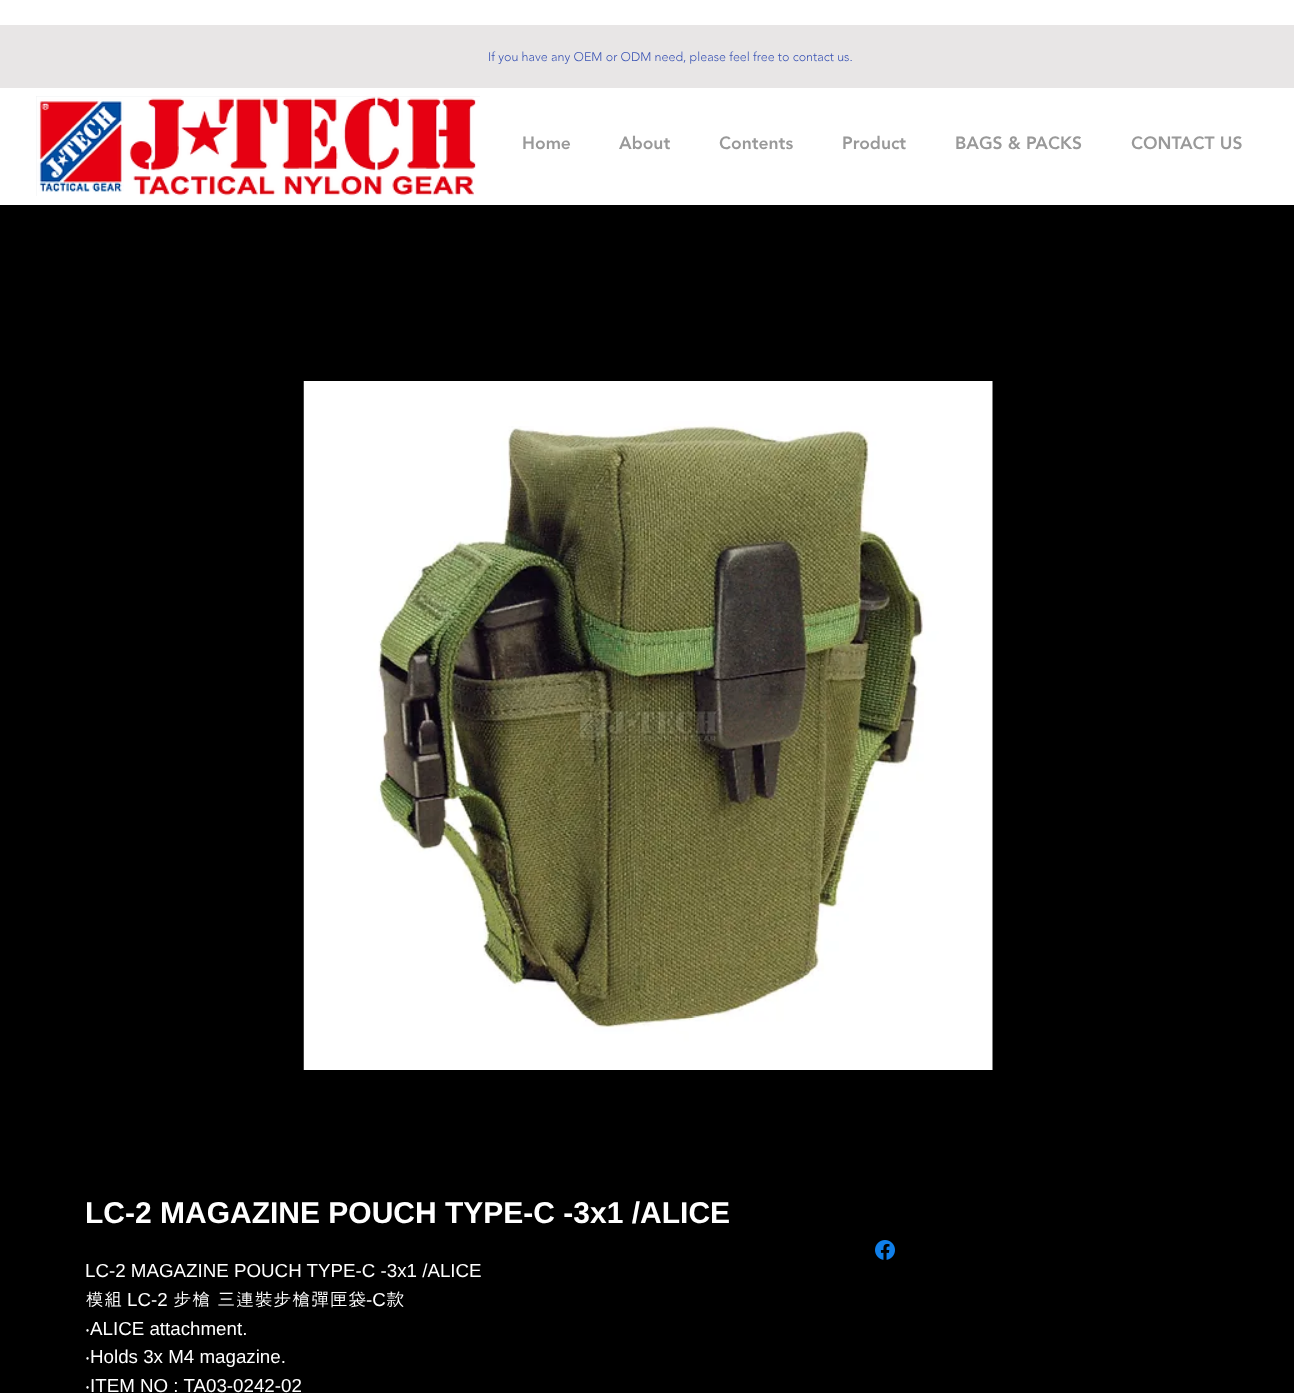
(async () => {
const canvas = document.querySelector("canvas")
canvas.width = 1294
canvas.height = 1393
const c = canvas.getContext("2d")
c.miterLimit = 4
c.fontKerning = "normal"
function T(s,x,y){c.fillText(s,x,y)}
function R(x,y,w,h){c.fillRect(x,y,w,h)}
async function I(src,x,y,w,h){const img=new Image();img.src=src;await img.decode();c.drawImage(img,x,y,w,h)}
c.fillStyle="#000"
R(0,0,1294,1393)
c.fillStyle="#fff"
R(0,0,1294,205)
c.fillStyle="#e8e6e6"
R(0,25,1294,63)
c.font="300 12.5px 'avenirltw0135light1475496'"
c.fillStyle="#3a54b4"
T("If you have any OEM or ODM need, please feel free to contact us.",488,61)
c.fillStyle="#edeff0"
R(36,96,444,100)
await I("1.png",36,96,444,100)
c.font="900 17.5px 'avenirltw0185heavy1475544'"
c.fillStyle="#999"
T("Home",522,149)
T("About",619,149)
T("Contents",719,149)
T("Product",842,149)
T("BAGS & PACKS",955,149)
T("CONTACT US",1131,149)
await I("2.png",303,381,690,689)
c.font="bold 30px Liberation Sans"
c.fillStyle="#fff"
T("LC-2 MAGAZINE POUCH TYPE-C -3x1 /ALICE",85,1223)
c.font="18.75px Liberation Sans"
T("LC-2 MAGAZINE POUCH TYPE-C -3x1 /ALICE",85,1277)
c.font="18.75px Dotum"
T("模組",85,1306)
c.font="18.75px Liberation Sans"
T("LC-2",127,1306)
c.font="18.75px Dotum"
T("步槍 三連裝步槍彈匣袋",173,1306)
c.font="18.75px Liberation Sans"
T("-C",366,1306)
c.font="18.75px Dotum"
T("款",386,1306)
c.font="18.75px Noto Sans"
T("‧",85,1335)
c.font="18.75px Liberation Sans"
T("ALICE attachment.",90,1335)
c.font="18.75px Noto Sans"
T("‧",85,1363)
c.font="18.75px Liberation Sans"
T("Holds 3x M4 magazine.",90,1363)
c.font="18.75px Noto Sans"
T("‧",85,1392)
c.font="18.75px Liberation Sans"
T("ITEM NO : TA03-0242-02",90,1392)
await I("3.png",875,1240,20,20)
})()
